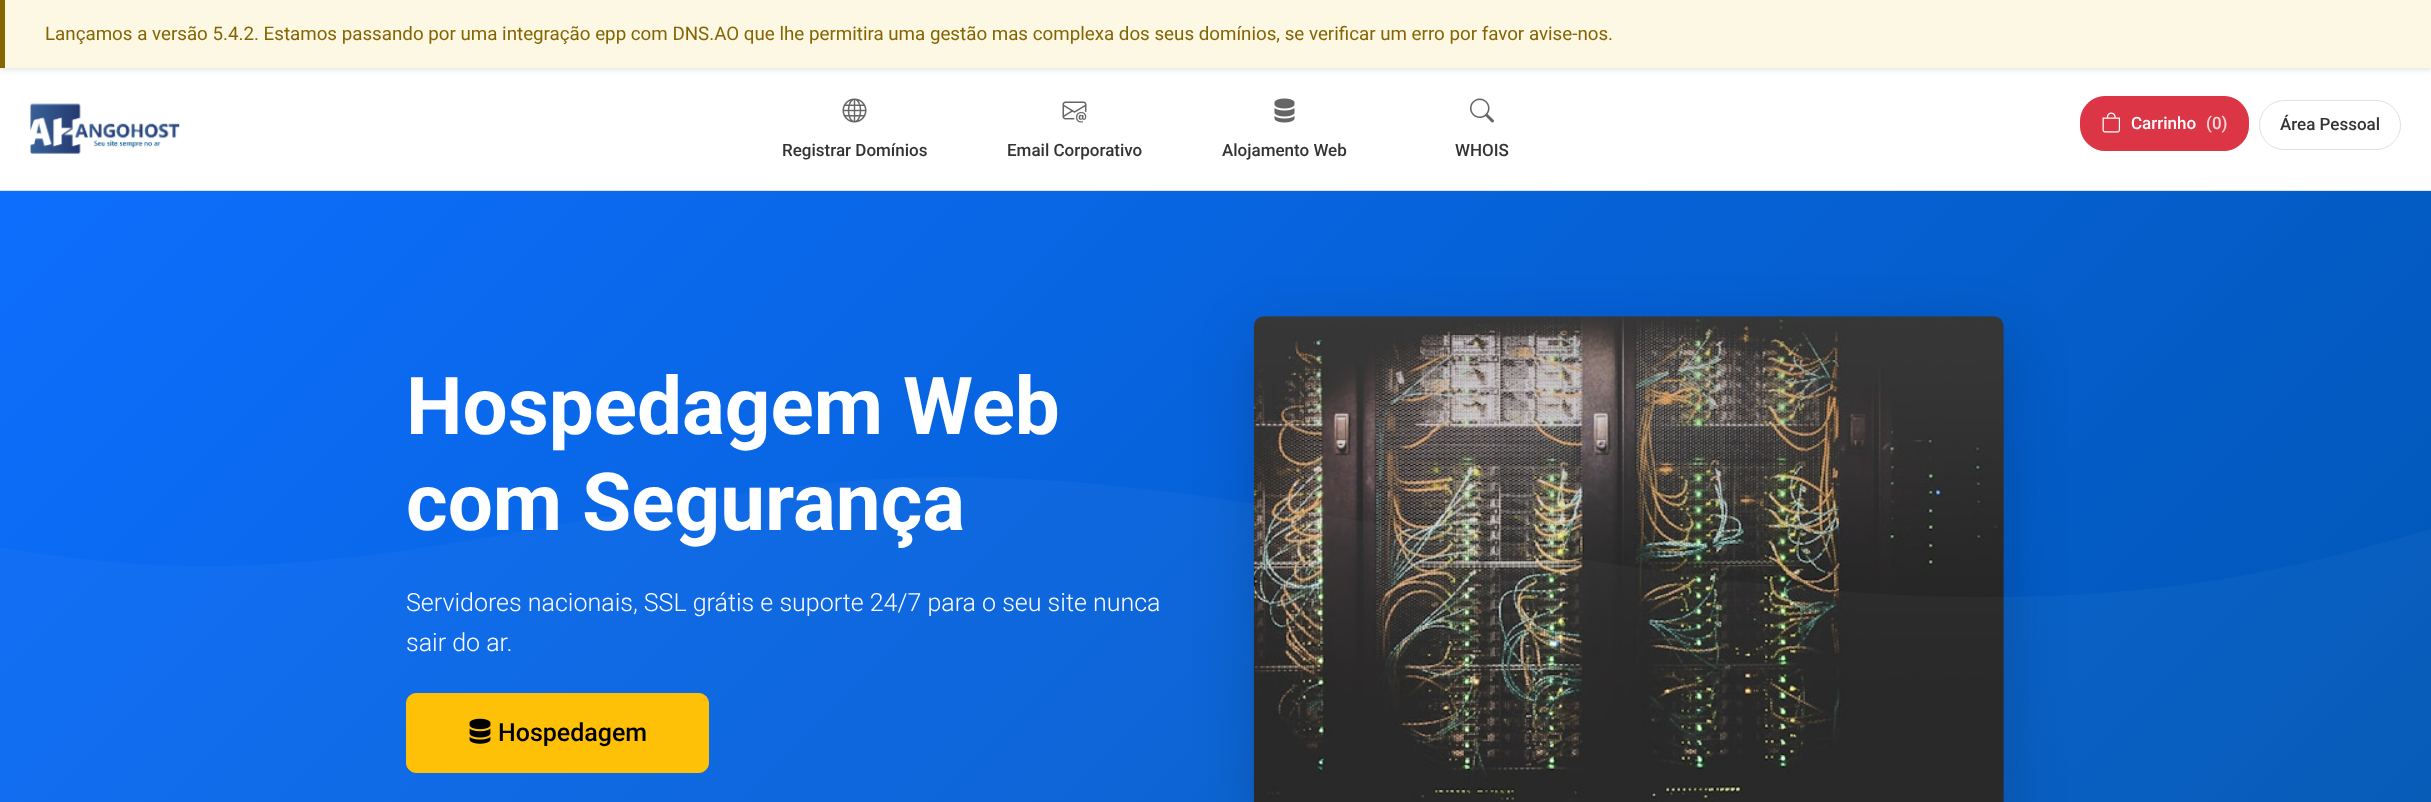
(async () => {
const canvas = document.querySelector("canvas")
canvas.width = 2431
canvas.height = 802
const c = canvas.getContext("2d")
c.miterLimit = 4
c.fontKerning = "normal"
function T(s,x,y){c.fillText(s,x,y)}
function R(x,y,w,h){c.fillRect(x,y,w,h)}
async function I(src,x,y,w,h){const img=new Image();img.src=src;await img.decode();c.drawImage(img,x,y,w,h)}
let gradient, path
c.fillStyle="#fff"
R(0,0,2431,802)
c.fillStyle="#0000001a"
c.filter="blur(2.5px)"
c.beginPath()
c.rect(0,3,2431,67)
c.fill()
c.filter="none"
c.fillStyle="#fcf8e3"
R(5,0,2426,68)
c.fillStyle="#856404"
R(0,0,5,68)
c.font="18.75px Roboto"
T("Lançamos a versão 5.4.2. Estamos passando por uma integração epp com DNS.AO que lhe permitira uma gestão mas complexa dos seus domínios, se verificar um erro por favor avise-nos.",45,40)
c.fillStyle="#e0e0e0"
R(0,190,2431,1)
await I("1.png",30,103,150,51)
c.fillStyle="#dc3545"
c.beginPath()
c.roundRect(2080.5,96.5,168,54,24.5)
c.fill()
c.strokeStyle="#dc3545"
c.stroke()
await I("2.png",2102,112,18,21)
c.font="500 17px Roboto"
c.fillStyle="#fff"
T("Carrinho",2131,129)
c.fillStyle="#f8d7da"
T("(0)",2206,129)
c.beginPath()
c.roundRect(2259.5,100.5,141,49,24.5)
c.strokeStyle="#e0e0e0"
c.stroke()
c.fillStyle="#333"
T("Área Pessoal",2280,130)
await I("3.png",842,98,25,25)
T("Registrar Domínios",782,156)
await I("4.png",1062,101,25,22)
T("Email Corporativo",1007,156)
await I("5.png",1274,98,21,25)
T("Alojamento Web",1222,156)
await I("6.png",1470,98,24,25)
T("WHOIS",1455,156)
gradient = c.createLinearGradient(420,-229,2011,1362)
gradient.addColorStop(0,"#0d6efd")
gradient.addColorStop(1,"#0056b3")
c.fillStyle = gradient
R(0,191,2431,611)
c.font="bold 80px Roboto"
c.fillStyle="#fff"
T("Hospedagem Web",406,434)
c.fillStyle="#0000002e"
c.filter="blur(30px)"
c.beginPath()
c.roundRect(1254,336,750,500,10)
c.fill()
c.filter="none"
await I("8.png",1253,316,751,486)
c.fillStyle="#ffffff08"
path = new Path2D("M-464 417l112 37c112 38 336 112 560 112c224 0 448-74 672-87c223-13 447 38 671 75c224 38 448 61 672 25c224-38 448-136 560-187l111-50v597h-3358z")
c.fill(path)
c.fillStyle="#fff"
T("com Segurança",406,530)
c.font="300 25px Roboto"
T("Servidores nacionais, SSL grátis e suporte 24/7 para o seu site nunca",406,611)
T("sair do ar.",406,651)
c.fillStyle="#ffc107"
c.beginPath()
c.roundRect(406.5,693.5,302,79,9.5)
c.fill()
c.strokeStyle="#ffc107"
c.stroke()
await I("7.png",469,718,22,26)
c.font="500 25px Roboto"
c.fillStyle="#000"
T("Hospedagem",498,741)
})()
